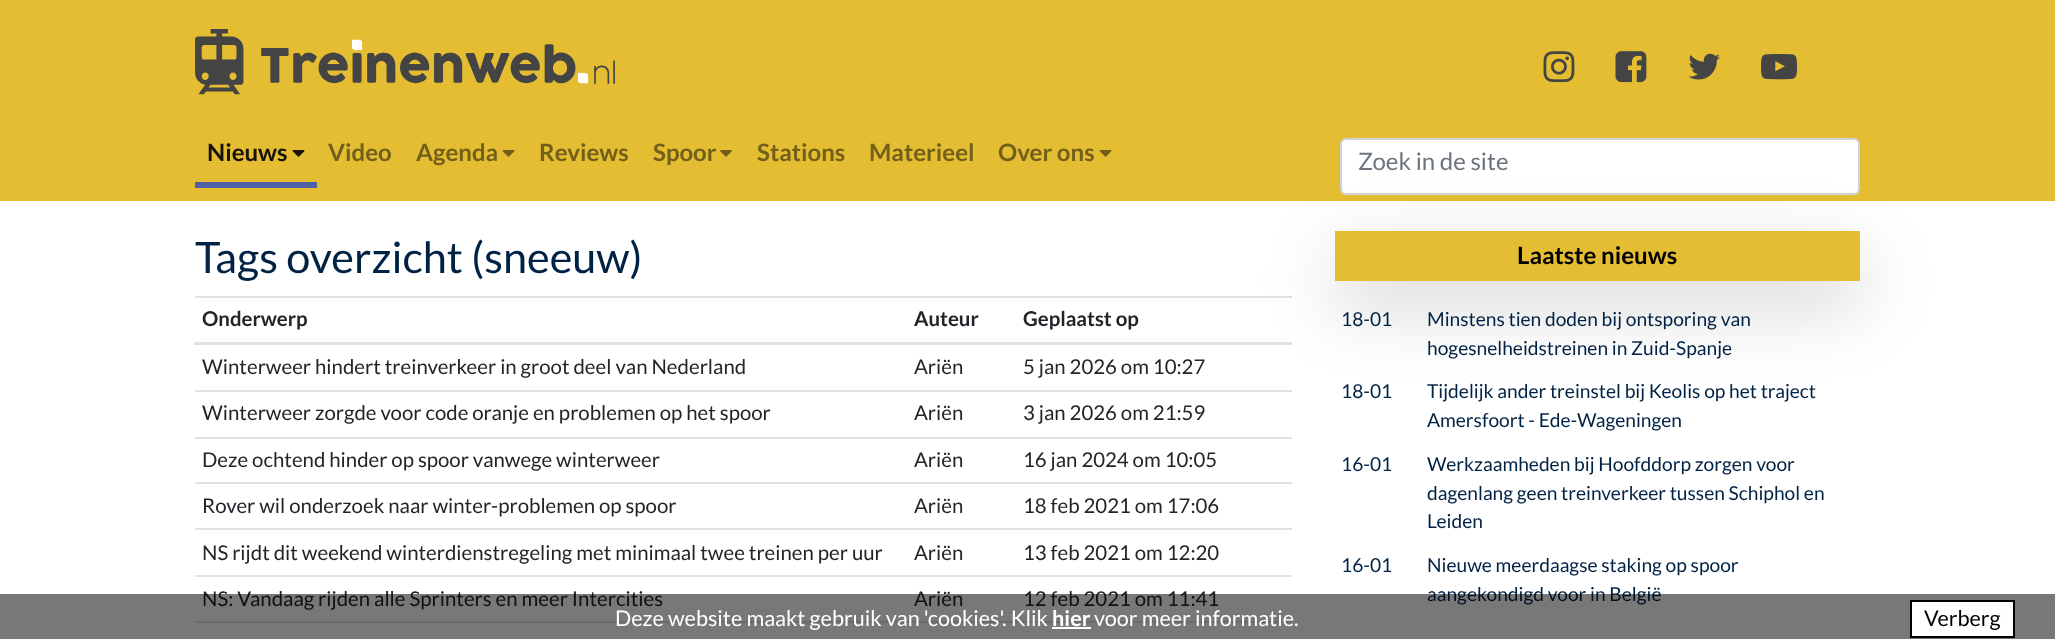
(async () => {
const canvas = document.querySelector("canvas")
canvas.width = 2055
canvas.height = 639
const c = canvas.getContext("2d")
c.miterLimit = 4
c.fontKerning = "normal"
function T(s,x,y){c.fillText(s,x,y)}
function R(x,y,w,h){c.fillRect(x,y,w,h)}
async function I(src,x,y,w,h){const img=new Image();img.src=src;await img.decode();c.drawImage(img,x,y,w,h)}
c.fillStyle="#fff"
R(0,0,2055,639)
c.fillStyle="#e4bd32"
R(0,0,2055,201)
await I("1.png",195,29,420,66)
await I("2.png",1543,51,32,32)
await I("3.png",1615,51,32,32)
await I("4.png",1688,53,32,27)
await I("5.png",1761,54,36,26)
c.fillStyle="#5060a5"
R(195,182,122,6)
c.font="bold 24px Lato"
c.fillStyle="#171305"
T("Nieuws",207,161)
await I("6.png",292,150,13,7)
c.fillStyle="#725f19"
T("Video",328,161)
T("Agenda",416,161)
await I("7.png",502,150,13,7)
T("Reviews",539,161)
T("Spoor",653,161)
await I("8.png",720,150,12,7)
T("Stations",757,161)
T("Materieel",869,161)
T("Over ons",998,161)
await I("7.png",1099,150,13,7)
c.fillStyle="#fff"
c.beginPath()
c.roundRect(1341,139,518,55,5)
c.fill()
c.strokeStyle="#ced4da"
c.lineWidth=2
c.stroke()
c.font="24px Lato"
c.fillStyle="#6c757d"
T("Zoek in de site",1358,170)
c.font="43.25px Lato"
c.fillStyle="#024"
T("Tags overzicht (sneeuw)",195,273)
c.font="bold 20.4px Lato"
c.fillStyle="#212529"
T("Onderwerp",202,326)
T("Auteur",914,326)
c.fillStyle="#dee2e6"
R(195,296,1097,2)
R(194,342,1098,3)
c.fillStyle="#212529"
T("Geplaatst op",1023,326)
c.font="20.4px Lato"
T("Winterweer hindert treinverkeer in groot deel van Nederland",202,374)
T("Ariën",914,374)
T("5 jan 2026 om 10:27",1023,374)
T("Winterweer zorgde voor code oranje en problemen op het spoor",202,420)
T("Ariën",914,420)
c.fillStyle="#dee2e6"
R(195,390,1097,2)
c.fillStyle="#212529"
T("3 jan 2026 om 21:59",1023,420)
T("Deze ochtend hinder op spoor vanwege winterweer",202,467)
T("Ariën",914,467)
c.fillStyle="#dee2e6"
R(195,437,1097,2)
c.fillStyle="#212529"
T("16 jan 2024 om 10:05",1023,467)
T("Rover wil onderzoek naar winter-problemen op spoor",202,513)
T("Ariën",914,513)
c.fillStyle="#dee2e6"
R(195,482,1097,2)
c.fillStyle="#212529"
T("18 feb 2021 om 17:06",1023,513)
T("NS rijdt dit weekend winterdienstregeling met minimaal twee treinen per uur",202,560)
T("Ariën",914,560)
c.fillStyle="#dee2e6"
R(195,528,1097,2)
c.fillStyle="#212529"
T("13 feb 2021 om 12:20",1023,560)
T("NS: Vandaag rijden alle Sprinters en meer Intercities",202,606)
T("Ariën",914,606)
c.fillStyle="#dee2e6"
R(195,575,1097,2)
c.fillStyle="#212529"
T("12 feb 2021 om 11:41",1023,606)
c.fillStyle="#dee2e6"
R(195,621,1097,2)
c.fillStyle="#0000002e"
c.filter="blur(36px)"
c.beginPath()
c.rect(1335,255,525,50)
c.fill()
c.filter="none"
c.fillStyle="#e4bd32"
R(1335,231,525,50)
c.font="bold 24px Lato"
c.fillStyle="#000"
T("Laatste nieuws",1517,264)
c.font="19.2px Lato"
c.fillStyle="#024"
T("18-01",1341,326)
T("Minstens tien doden bij ontsporing van",1427,326)
T("hogesnelheidstreinen in Zuid-Spanje",1427,355)
T("18-01",1341,398)
T("Tijdelijk ander treinstel bij Keolis op het traject",1427,398)
T("Amersfoort - Ede-Wageningen",1427,427)
T("16-01",1341,471)
T("Werkzaamheden bij Hoofddorp zorgen voor",1427,471)
T("dagenlang geen treinverkeer tussen Schiphol en",1427,500)
T("Leiden",1427,528)
T("16-01",1341,572)
T("Nieuwe meerdaagse staking op spoor",1427,572)
T("aangekondigd voor in België",1427,601)
c.fillStyle="#00000087"
R(0,594,2055,45)
c.font="21.6px Lato"
c.fillStyle="#fff"
T("Deze website maakt gebruik van 'cookies'. Klik",615,626)
R(1052,627,39,2)
c.font="bold 21.6px Lato"
T("hier",1052,626)
c.font="21.6px Lato"
T("voor meer informatie.",1094,626)
c.beginPath()
c.rect(1911,601,103,36)
c.fill()
c.strokeStyle="#000"
c.stroke()
c.fillStyle="#000"
T("Verberg",1924,626)
})()
